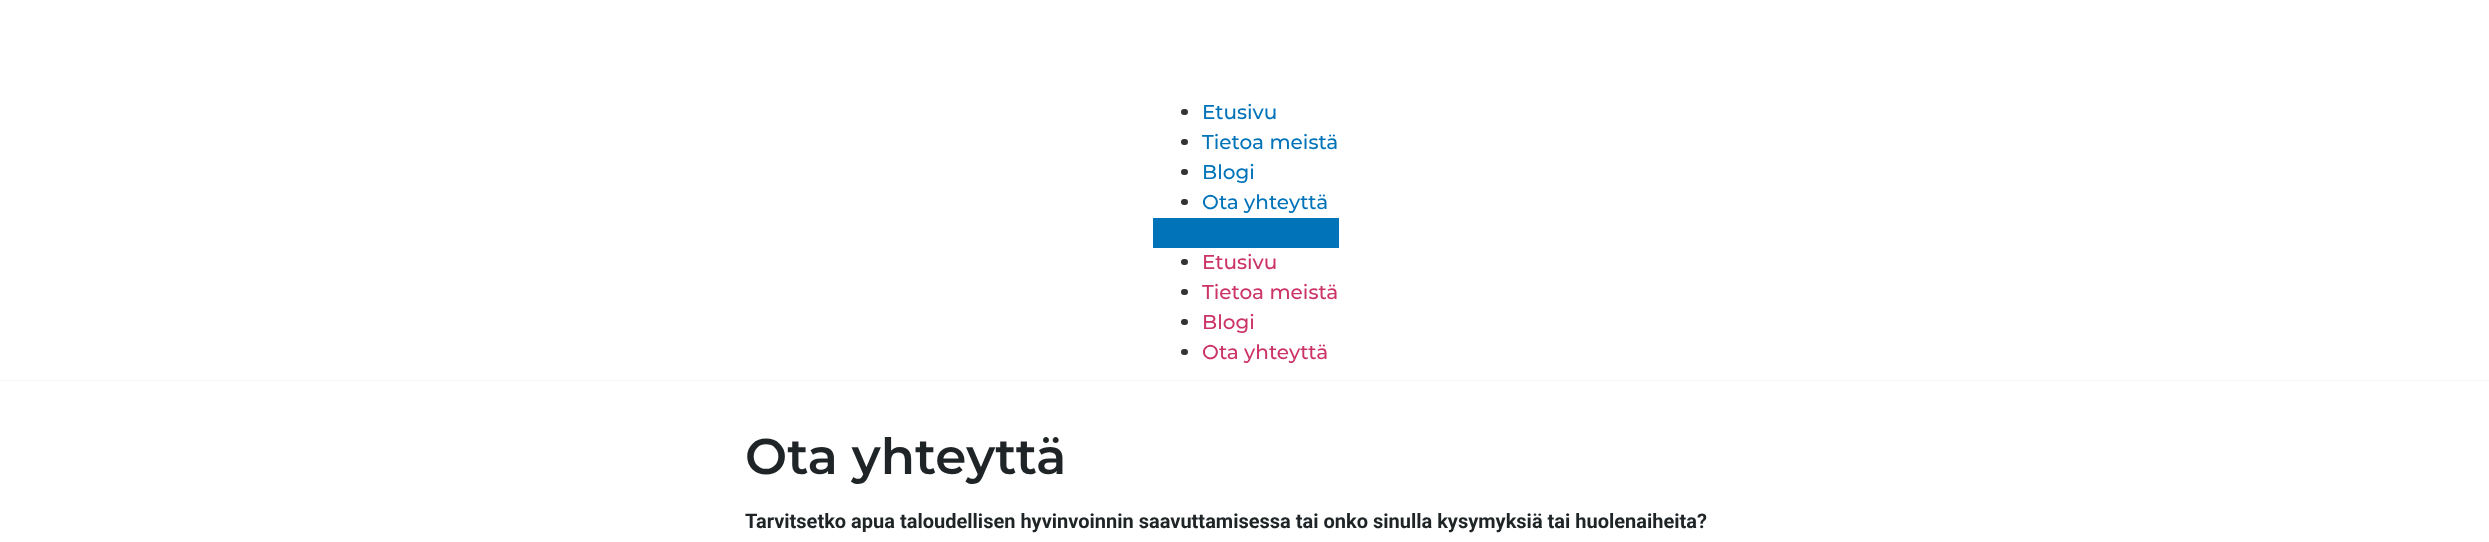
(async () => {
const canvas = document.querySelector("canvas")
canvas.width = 2489
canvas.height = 542
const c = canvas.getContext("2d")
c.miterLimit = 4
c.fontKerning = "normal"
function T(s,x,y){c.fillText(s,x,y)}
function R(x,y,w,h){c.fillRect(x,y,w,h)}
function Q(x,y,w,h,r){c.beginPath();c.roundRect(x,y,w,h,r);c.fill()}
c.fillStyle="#fff"
R(0,0,2489,542)
c.fillStyle="#f6f7f9"
R(0,380,2489,1)
c.fillStyle="#333"
Q(1181,109,7,6,3)
c.font="500 20px Montserrat"
c.fillStyle="#0073b9"
T("Etusivu",1202,119)
c.fillStyle="#333"
Q(1181,139,7,6,3)
c.fillStyle="#0073b9"
T("Tietoa meistä",1202,149)
c.fillStyle="#333"
Q(1181,169,7,6,3)
c.fillStyle="#0073b9"
T("Blogi",1202,179)
c.fillStyle="#333"
Q(1181,199,7,6,3)
c.fillStyle="#0073b9"
T("Ota yhteyttä",1202,209)
R(1153,218,186,30)
c.fillStyle="#333"
Q(1181,259,7,6,3)
c.fillStyle="#c36"
T("Etusivu",1202,269)
c.fillStyle="#333"
Q(1181,289,7,6,3)
c.fillStyle="#c36"
T("Tietoa meistä",1202,299)
c.fillStyle="#333"
Q(1181,319,7,6,3)
c.fillStyle="#c36"
T("Blogi",1202,329)
c.fillStyle="#333"
Q(1181,349,7,6,3)
c.fillStyle="#c36"
T("Ota yhteyttä",1202,359)
c.font="600 50px Montserrat"
c.fillStyle="#1f2426"
T("Ota yhteyttä",745,474)
c.font="bold 20px Roboto"
T("Tarvitsetko apua taloudellisen hyvinvoinnin saavuttamisessa tai onko sinulla kysymyksiä tai huolenaiheita?",745,528)
})()
